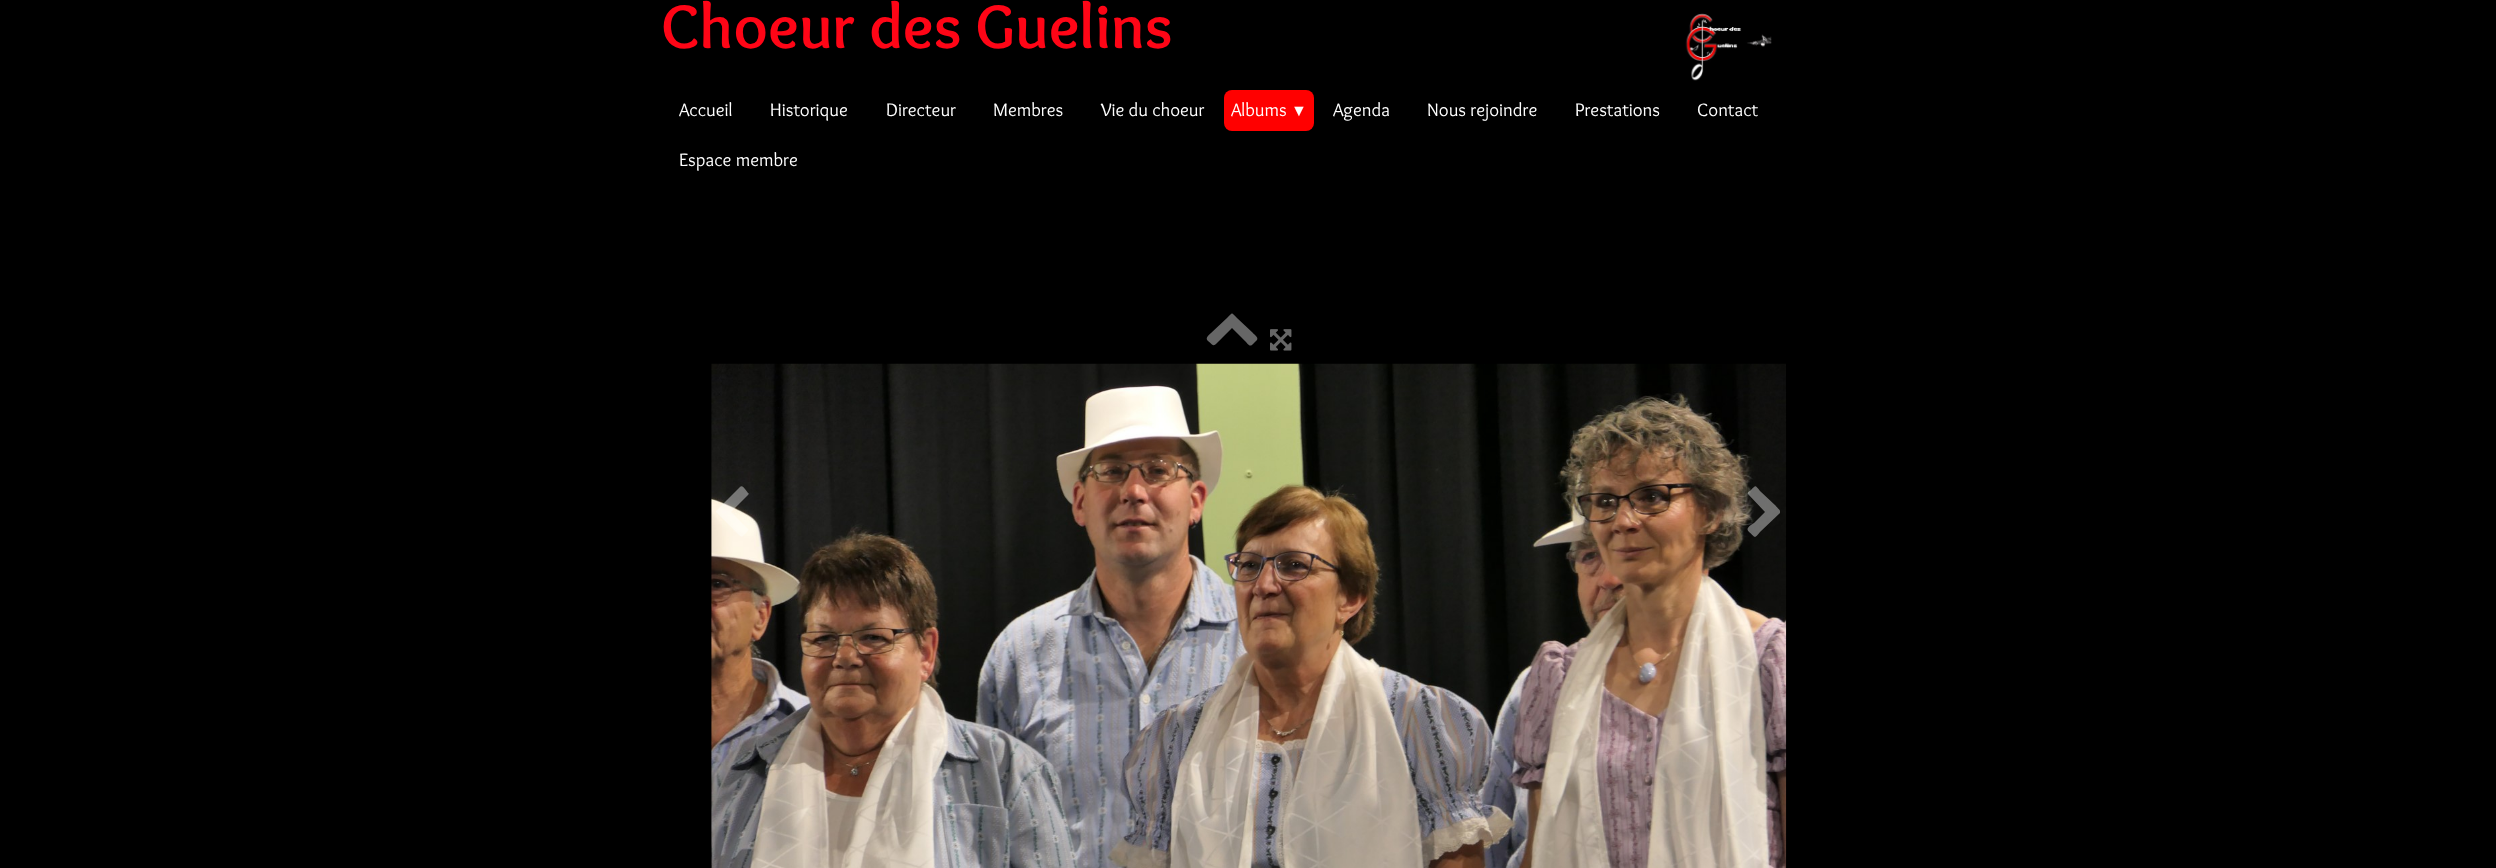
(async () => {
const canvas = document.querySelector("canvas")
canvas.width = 2496
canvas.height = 868
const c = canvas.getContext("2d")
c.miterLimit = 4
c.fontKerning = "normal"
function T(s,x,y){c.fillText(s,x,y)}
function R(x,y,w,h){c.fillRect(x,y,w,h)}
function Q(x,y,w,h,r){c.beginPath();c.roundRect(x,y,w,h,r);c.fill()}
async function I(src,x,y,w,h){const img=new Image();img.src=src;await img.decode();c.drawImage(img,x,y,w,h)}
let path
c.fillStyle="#000"
R(0,0,2496,868)
c.font="bold 63.75px Overlock"
c.fillStyle="#ff0516"
T("Choeur des Guelins",661,48)
await I("1.png",1685,13,87,68)
c.font="18.75px Overlock"
c.fillStyle="#fff"
T("Accueil",679,116)
T("Historique",770,116)
T("Directeur",886,116)
T("Membres",993,116)
T("Vie du choeur",1101,116)
c.fillStyle="#f00"
Q(1224,90,90,41,8)
c.fillStyle="#fff"
T("Albums",1231,116)
c.font="16px Liberation Serif"
T("▼",1291,116)
c.font="18.75px Overlock"
T("Agenda",1333,116)
T("Nous rejoindre",1427,116)
T("Prestations",1575,116)
T("Contact",1697,116)
T("Espace membre",679,166)
c.fillStyle="#666"
path = new Path2D("M1257 340c-6 6-6 8-11 2l-14-14l-14 14c-5 5-4 4-10-1c-3-3 0-5 3-8l16-15c6-6 4-6 10 0l16 15c0 1 6 4 4 7z")
c.fill(path)
await I("2.png",1270,329,22,22)
await I("3.png",711,363,1076,505)
c.fillStyle="#ffffff66"
path = new Path2D("M748 495l-17 17l14 14c4 4 5 3 1 7c-5 5-4 5-10-1l-20-20v-1l24-24c2-2 4 1 5 2l3 4c1 0 1 1 0 2z")
c.fill(path)
path = new Path2D("M1780 513l-20 19c-6 7-4 6-11 0c-4-4 1-6 5-9l11-11l-17-18c-1-2 2-3 3-4c5-5 4-5 9 1l16 15c0 1 5 4 4 6z")
c.fill(path)
})()
